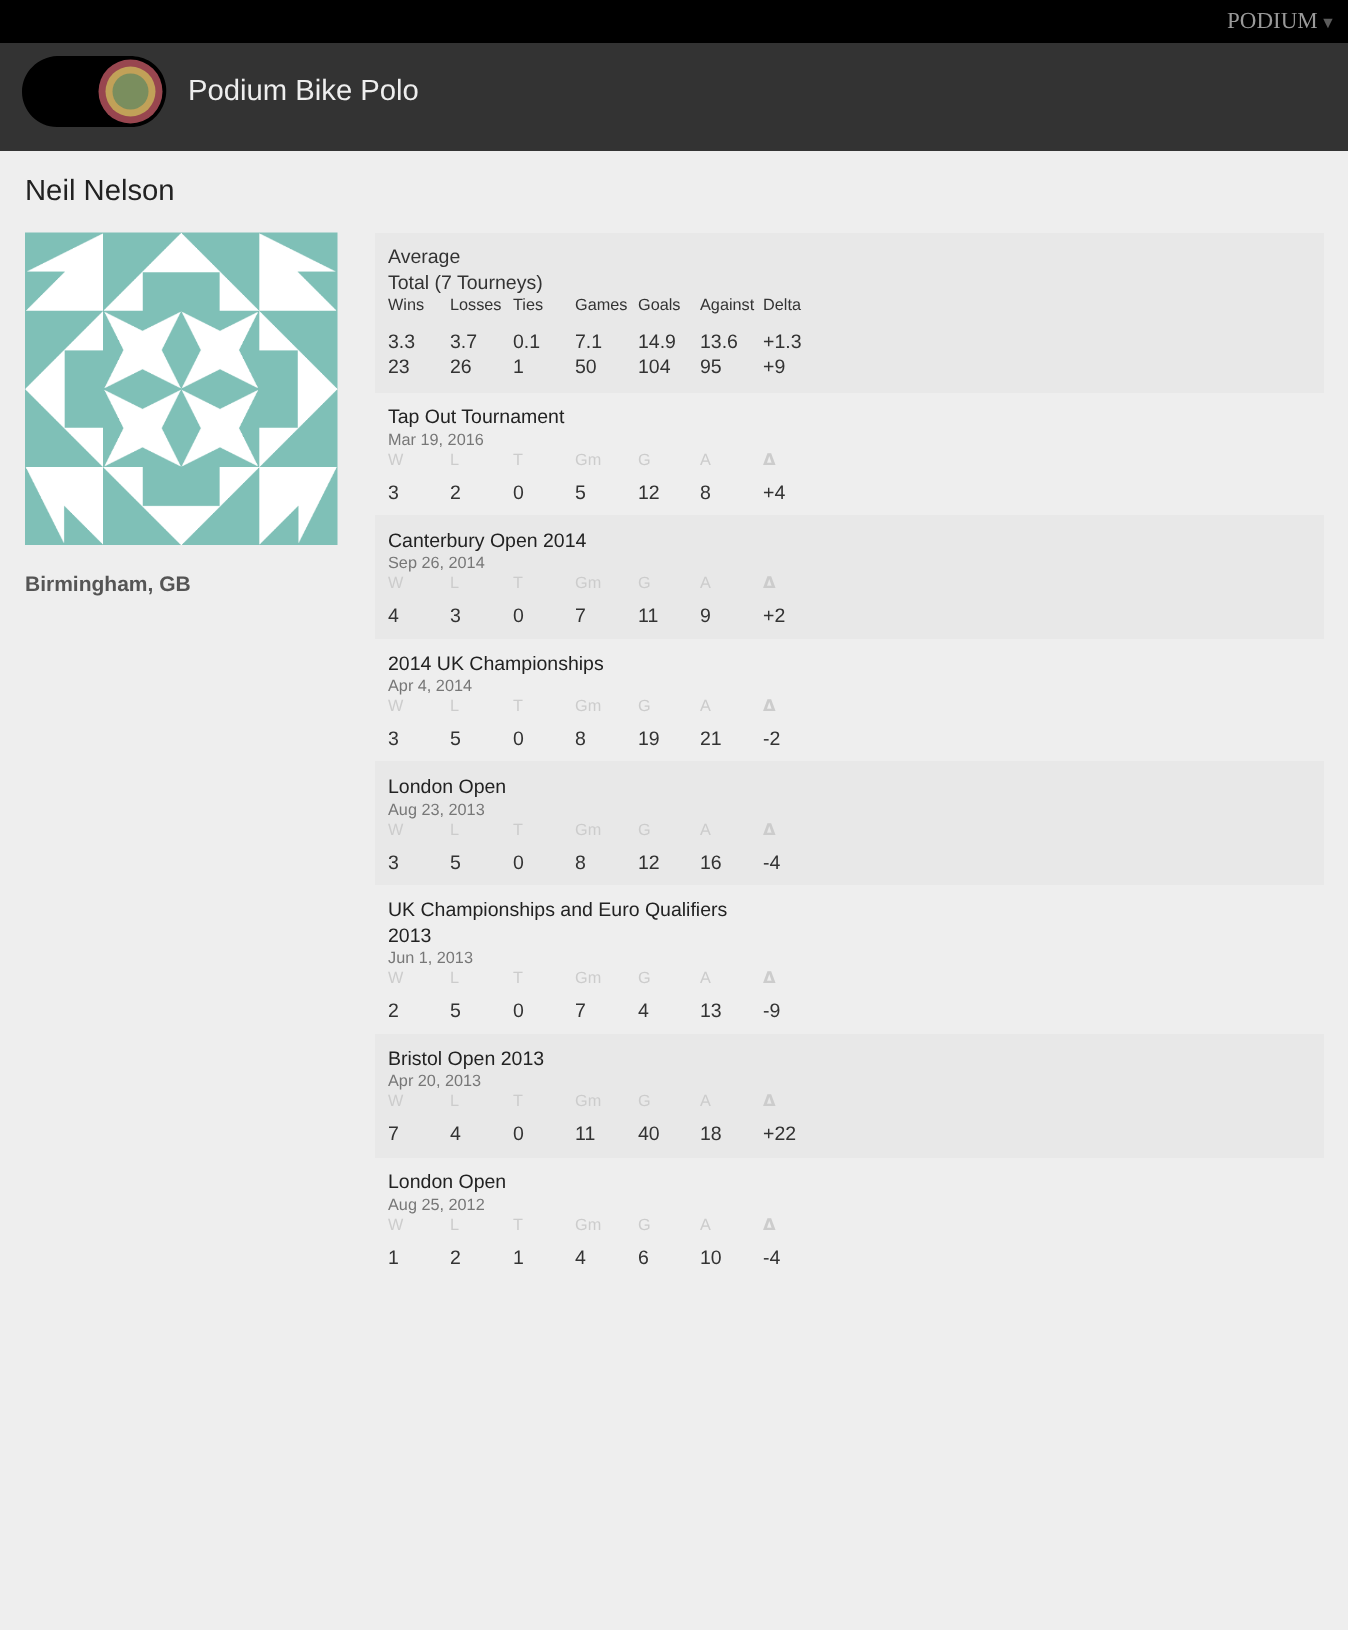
(async () => {
const canvas = document.querySelector("canvas")
canvas.width = 1348
canvas.height = 1630
const c = canvas.getContext("2d")
c.miterLimit = 4
c.fontKerning = "normal"
function T(s,x,y){c.fillText(s,x,y)}
function R(x,y,w,h){c.fillRect(x,y,w,h)}
async function I(src,x,y,w,h){const img=new Image();img.src=src;await img.decode();c.drawImage(img,x,y,w,h)}
let path
c.fillStyle="#eee"
R(0,0,1348,1630)
c.fillStyle="#000"
R(0,0,1348,43)
c.font="23px Liberation Serif"
c.fillStyle="#999"
T("PODIUM",1227,28)
c.font="16px Liberation Serif"
c.fillStyle="#5c5c5c"
T("▼",1320,28)
c.fillStyle="#333"
R(0,43,1348,108)
c.fillStyle="#000"
path = new Path2D("M22 92c0-20 16-35 35-36h73c7 0 15 2 21 6c29 20 14 66-21 65h-73c-19 0-35-16-35-35z")
c.fill(path)
c.fillStyle="#98464f"
c.beginPath()
c.arc(130.5,91.5,32,0,7)
c.fill()
c.fillStyle="#c1a158"
c.beginPath()
c.arc(130.5,91.5,25,0,7)
c.fill()
c.fillStyle="#7a8e5e"
c.beginPath()
c.arc(130.5,91.5,18,0,7)
c.fill()
c.font="29.25px Liberation Sans"
c.fillStyle="#eee"
T("Podium Bike Polo",188,100)
c.fillStyle="#222"
T("Neil Nelson",25,200)
await I("1.png",25,232,313,313)
c.font="bold 21px Liberation Sans"
c.fillStyle="#555"
T("Birmingham, GB",25,591)
c.fillStyle="#e8e8e8"
R(375,233,949,160)
c.font="19.5px Liberation Sans"
c.fillStyle="#333"
T("Average",388,263)
T("Total (7 Tourneys)",388,289)
c.font="16.25px Liberation Sans"
T("Wins",388,310)
T("Losses",450,310)
T("Ties",513,310)
T("Games",575,310)
T("Goals",638,310)
T("Against",700,310)
T("Delta",763,310)
c.font="19.5px Liberation Sans"
T("3.3",388,348)
T("3.7",450,348)
T("0.1",513,348)
T("7.1",575,348)
T("14.9",638,348)
T("13.6",700,348)
T("+1.3",763,348)
T("23",388,373)
T("26",450,373)
T("1",513,373)
T("50",575,373)
T("104",638,373)
T("95",700,373)
T("+9",763,373)
c.fillStyle="#222"
T("Tap Out Tournament",388,423)
c.font="16.25px Liberation Sans"
c.fillStyle="#777"
T("Mar 19, 2016",388,445)
c.fillStyle="#ccc"
T("W",388,465)
T("L",450,465)
T("T",513,465)
T("Gm",575,465)
T("G",638,465)
T("A",700,465)
c.font="bold 16.25px DejaVu Sans"
T("𝝙",763,465)
c.font="19.5px Liberation Sans"
c.fillStyle="#333"
T("3",388,499)
T("2",450,499)
T("0",513,499)
T("5",575,499)
T("12",638,499)
T("8",700,499)
T("+4",763,499)
c.fillStyle="#e8e8e8"
R(375,515,949,124)
c.fillStyle="#222"
T("Canterbury Open 2014",388,547)
c.font="16.25px Liberation Sans"
c.fillStyle="#777"
T("Sep 26, 2014",388,568)
c.fillStyle="#ccc"
T("W",388,588)
T("L",450,588)
T("T",513,588)
T("Gm",575,588)
T("G",638,588)
T("A",700,588)
c.font="bold 16.25px DejaVu Sans"
T("𝝙",763,588)
c.font="19.5px Liberation Sans"
c.fillStyle="#333"
T("4",388,622)
T("3",450,622)
T("0",513,622)
T("7",575,622)
T("11",638,622)
T("9",700,622)
T("+2",763,622)
c.fillStyle="#222"
T("2014 UK Championships",388,670)
c.font="16.25px Liberation Sans"
c.fillStyle="#777"
T("Apr 4, 2014",388,691)
c.fillStyle="#ccc"
T("W",388,711)
T("L",450,711)
T("T",513,711)
T("Gm",575,711)
T("G",638,711)
T("A",700,711)
c.font="bold 16.25px DejaVu Sans"
T("𝝙",763,711)
c.font="19.5px Liberation Sans"
c.fillStyle="#333"
T("3",388,745)
T("5",450,745)
T("0",513,745)
T("8",575,745)
T("19",638,745)
T("21",700,745)
T("-2",763,745)
c.fillStyle="#e8e8e8"
R(375,761,949,124)
c.fillStyle="#222"
T("London Open",388,793)
c.font="16.25px Liberation Sans"
c.fillStyle="#777"
T("Aug 23, 2013",388,815)
c.fillStyle="#ccc"
T("W",388,835)
T("L",450,835)
T("T",513,835)
T("Gm",575,835)
T("G",638,835)
T("A",700,835)
c.font="bold 16.25px DejaVu Sans"
T("𝝙",763,835)
c.font="19.5px Liberation Sans"
c.fillStyle="#333"
T("3",388,869)
T("5",450,869)
T("0",513,869)
T("8",575,869)
T("12",638,869)
T("16",700,869)
T("-4",763,869)
c.fillStyle="#222"
T("UK Championships and Euro Qualifiers",388,916)
T("2013",388,942)
c.font="16.25px Liberation Sans"
c.fillStyle="#777"
T("Jun 1, 2013",388,963)
c.fillStyle="#ccc"
T("W",388,983)
T("L",450,983)
T("T",513,983)
T("Gm",575,983)
T("G",638,983)
T("A",700,983)
c.font="bold 16.25px DejaVu Sans"
T("𝝙",763,983)
c.font="19.5px Liberation Sans"
c.fillStyle="#333"
T("2",388,1017)
T("5",450,1017)
T("0",513,1017)
T("7",575,1017)
T("4",638,1017)
T("13",700,1017)
T("-9",763,1017)
c.fillStyle="#e8e8e8"
R(375,1034,949,124)
c.fillStyle="#222"
T("Bristol Open 2013",388,1065)
c.font="16.25px Liberation Sans"
c.fillStyle="#777"
T("Apr 20, 2013",388,1086)
c.fillStyle="#ccc"
T("W",388,1106)
T("L",450,1106)
T("T",513,1106)
T("Gm",575,1106)
T("G",638,1106)
T("A",700,1106)
c.font="bold 16.25px DejaVu Sans"
T("𝝙",763,1106)
c.font="19.5px Liberation Sans"
c.fillStyle="#333"
T("7",388,1140)
T("4",450,1140)
T("0",513,1140)
T("11",575,1140)
T("40",638,1140)
T("18",700,1140)
T("+22",763,1140)
c.fillStyle="#222"
T("London Open",388,1188)
c.font="16.25px Liberation Sans"
c.fillStyle="#777"
T("Aug 25, 2012",388,1210)
c.fillStyle="#ccc"
T("W",388,1230)
T("L",450,1230)
T("T",513,1230)
T("Gm",575,1230)
T("G",638,1230)
T("A",700,1230)
c.font="bold 16.25px DejaVu Sans"
T("𝝙",763,1230)
c.font="19.5px Liberation Sans"
c.fillStyle="#333"
T("1",388,1264)
T("2",450,1264)
T("1",513,1264)
T("4",575,1264)
T("6",638,1264)
T("10",700,1264)
T("-4",763,1264)
})()
